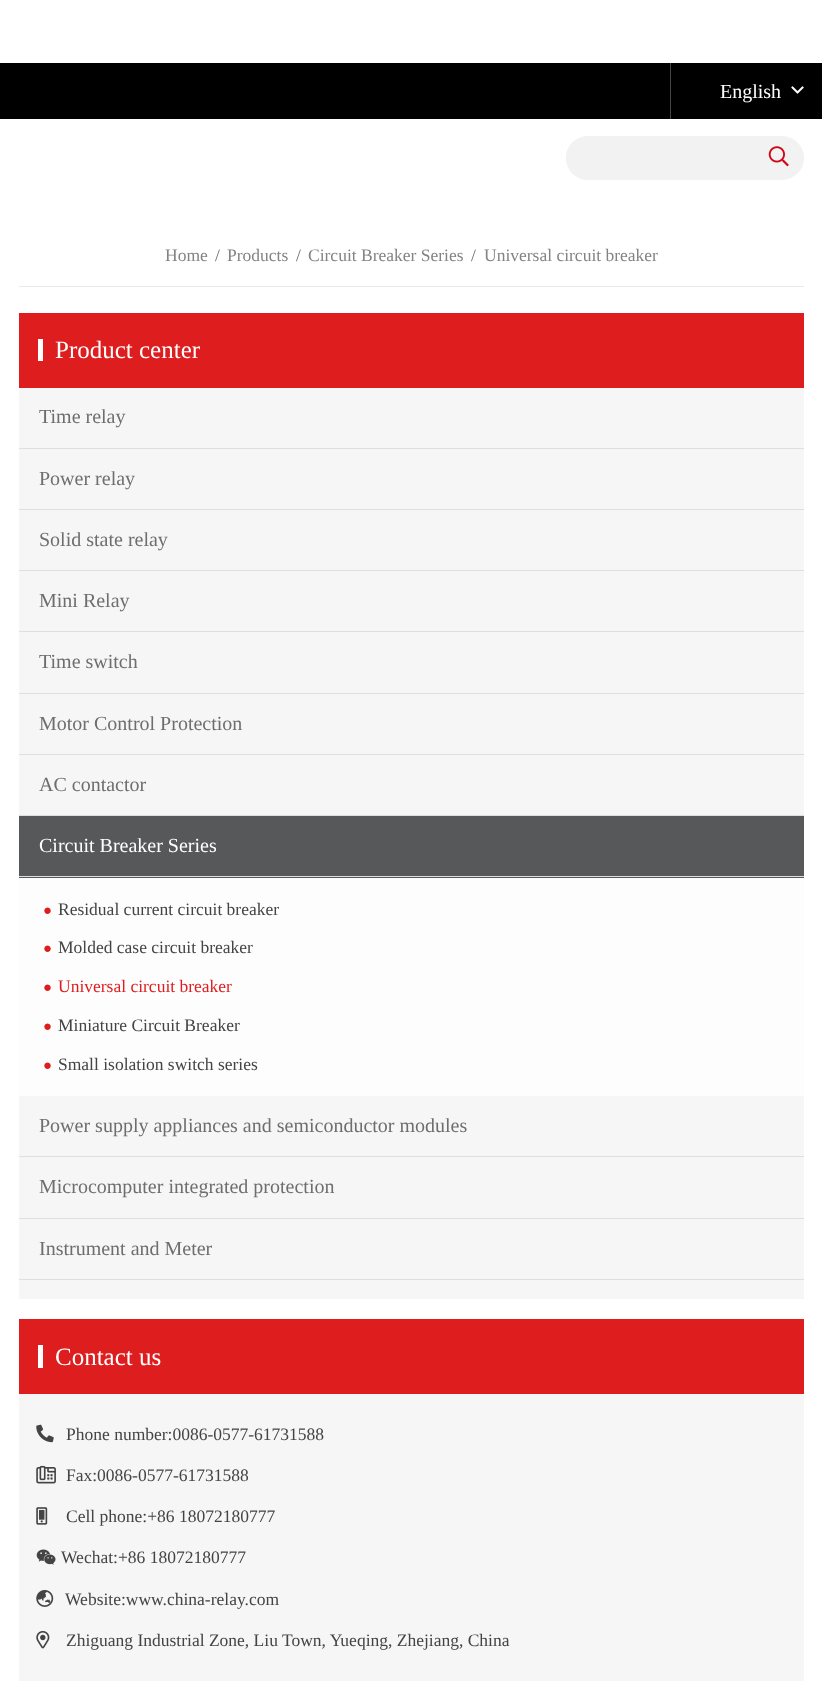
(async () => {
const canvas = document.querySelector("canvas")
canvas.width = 822
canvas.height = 1681
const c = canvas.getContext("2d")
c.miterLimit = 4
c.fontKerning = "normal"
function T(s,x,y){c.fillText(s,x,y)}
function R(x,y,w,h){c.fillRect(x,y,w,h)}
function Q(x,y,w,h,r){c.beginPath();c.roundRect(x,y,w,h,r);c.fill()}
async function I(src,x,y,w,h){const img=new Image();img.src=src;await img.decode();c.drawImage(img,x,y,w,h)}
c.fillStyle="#fff"
R(0,0,822,1681)
c.fillStyle="#000"
R(0,63,822,56)
c.fillStyle="#454545"
R(670,63,1,56)
c.font="20px Liberation Serif"
c.fillStyle="#fff"
T("English",720,98)
await I("1.png",791,86,13,8)
c.fillStyle="#f2f2f2"
Q(566,136,238,44,22)
c.beginPath()
c.roundRect(566,136,189,44,[22,0,0,22])
c.fill()
await I("2.png",768,146,21,21)
c.fillStyle="#e9e9e9"
R(19,286,785,1)
c.font="17.5px Liberation Serif"
c.fillStyle="#838383"
T("Home",165,261)
c.fillStyle="#6e6e6e"
T("/",215,261)
c.fillStyle="#838383"
T("Products",227,261)
c.fillStyle="#6e6e6e"
T("/",296,261)
c.fillStyle="#838383"
T("Circuit Breaker Series",308,261)
c.fillStyle="#6e6e6e"
T("/",471,261)
c.fillStyle="#838383"
T("Universal circuit breaker",484,261)
c.fillStyle="#f6f6f6"
R(19,388,785,1293)
c.fillStyle="#de1d1e"
R(19,313,785,75)
c.fillStyle="#fff"
R(38,339,5,22)
c.font="25px Liberation Serif"
T("Product center",55,358)
c.fillStyle="#dfdfdf"
R(19,448,785,1)
c.font="20px Liberation Serif"
c.fillStyle="#6e6e6e"
T("Time relay",39,423)
c.fillStyle="#dfdfdf"
R(19,509,785,1)
c.fillStyle="#6e6e6e"
T("Power relay",39,485)
c.fillStyle="#dfdfdf"
R(19,570,785,1)
c.fillStyle="#6e6e6e"
T("Solid state relay",39,546)
c.fillStyle="#dfdfdf"
R(19,631,785,1)
c.fillStyle="#6e6e6e"
T("Mini Relay",39,607)
c.fillStyle="#dfdfdf"
R(19,693,785,1)
c.fillStyle="#6e6e6e"
T("Time switch",39,668)
c.fillStyle="#dfdfdf"
R(19,754,785,1)
c.fillStyle="#6e6e6e"
T("Motor Control Protection",39,730)
c.fillStyle="#dfdfdf"
R(19,815,785,1)
c.fillStyle="#6e6e6e"
T("AC contactor",39,791)
c.fillStyle="#57585a"
R(19,816,785,62)
c.fillStyle="#dfdfdf"
R(19,876,785,1)
c.fillStyle="#fff"
T("Circuit Breaker Series",39,852)
c.fillStyle="#fdfdfd"
R(19,878,785,218)
c.font="15px Liberation Serif"
c.fillStyle="#de1e1e"
T("●",43,915)
c.font="17.5px Liberation Serif"
c.fillStyle="#444"
T("Residual current circuit breaker",58,915)
c.font="15px Liberation Serif"
c.fillStyle="#de1e1e"
T("●",43,953)
c.font="17.5px Liberation Serif"
c.fillStyle="#444"
T("Molded case circuit breaker",58,953)
c.font="15px Liberation Serif"
c.fillStyle="#de1e1e"
T("●",43,992)
c.font="17.5px Liberation Serif"
T("Universal circuit breaker",58,992)
c.font="15px Liberation Serif"
T("●",43,1031)
c.font="17.5px Liberation Serif"
c.fillStyle="#444"
T("Miniature Circuit Breaker",58,1031)
c.font="15px Liberation Serif"
c.fillStyle="#de1e1e"
T("●",43,1070)
c.font="17.5px Liberation Serif"
c.fillStyle="#444"
T("Small isolation switch series",58,1070)
c.fillStyle="#dfdfdf"
R(19,1156,785,1)
c.font="20px Liberation Serif"
c.fillStyle="#6e6e6e"
T("Power supply appliances and semiconductor modules",39,1132)
c.fillStyle="#dfdfdf"
R(19,1218,785,1)
c.fillStyle="#6e6e6e"
T("Microcomputer integrated protection",39,1193)
c.fillStyle="#dfdfdf"
R(19,1279,785,1)
c.fillStyle="#6e6e6e"
T("Instrument and Meter",39,1255)
c.fillStyle="#fff"
R(19,1299,785,20)
c.fillStyle="#de1d1e"
R(19,1319,785,75)
c.fillStyle="#fff"
R(38,1345,5,23)
c.font="25px Liberation Serif"
T("Contact us",55,1365)
await I("3.png",36,1424,18,19)
c.font="17.5px Liberation Serif"
c.fillStyle="#444"
T("Phone number:0086-0577-61731588",66,1440)
await I("4.png",36,1465,20,19)
T("Fax:0086-0577-61731588",66,1481)
await I("5.png",36,1507,12,18)
T("Cell phone:+86 18072180777",66,1522)
await I("6.png",36,1549,20,16)
T("Wechat:+86 18072180777",61,1563)
await I("7.png",36,1590,18,17)
T("Website:www.china-relay.com",65,1605)
await I("8.png",36,1630,14,19)
T("Zhiguang Industrial Zone, Liu Town, Yueqing, Zhejiang, China",66,1646)
})()
